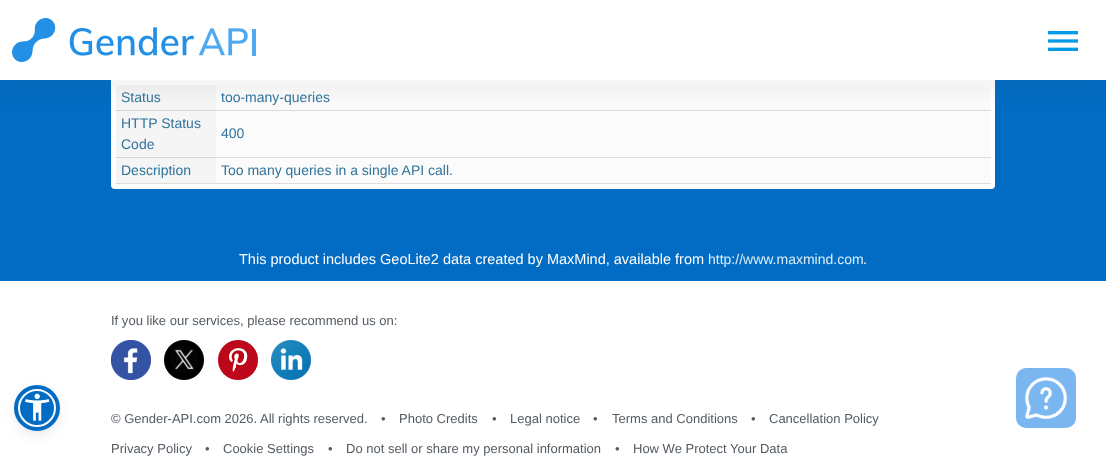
(async () => {
const canvas = document.querySelector("canvas")
canvas.width = 1106
canvas.height = 458
const c = canvas.getContext("2d")
c.miterLimit = 4
c.fontKerning = "normal"
function T(s,x,y){c.fillText(s,x,y)}
function R(x,y,w,h){c.fillRect(x,y,w,h)}
function Q(x,y,w,h,r){c.beginPath();c.roundRect(x,y,w,h,r);c.fill()}
async function I(src,x,y,w,h){const img=new Image();img.src=src;await img.decode();c.drawImage(img,x,y,w,h)}
c.fillStyle="#026bc3"
R(0,0,1106,458)
c.fillStyle="#fff"
Q(111,41,884,148,4)
c.fillStyle="#fbfbfb"
R(116,85,874,98)
c.fillStyle="#f5f5f5"
Q(116,110,100,47,2)
c.fillStyle="#0000001f"
R(115,110,876,1)
c.fillStyle="#f5f5f5"
Q(116,85,100,25,2)
c.fillStyle="#5252520f"
c.filter="blur(10px)"
c.beginPath()
c.rect(-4,6,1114,88)
c.fill()
c.filter="none"
c.fillStyle="#fff"
R(0,0,1106,80)
await I("1.png",12,18,244,44)
await I("2.png",1048,31,30,20)
R(0,281,1106,177)
c.fillStyle="#5d649433"
c.filter="blur(2px)"
c.beginPath()
c.roundRect(18,391,38,38,19)
c.fill()
c.filter="none"
c.fillStyle="#252c6126"
c.filter="blur(7.5px)"
c.beginPath()
c.roundRect(18,394,38,38,19)
c.fill()
c.filter="none"
c.fillStyle="#026bc3"
c.beginPath()
c.arc(37,408,18,0,7)
c.fill()
c.strokeStyle="#fff"
c.lineWidth=2
c.stroke()
c.beginPath()
c.arc(37,408,21,0,7)
c.strokeStyle="#026bc3"
c.lineWidth=4
c.stroke()
await I("3.png",25,393,25,28)
c.fillStyle="#e0e0e0"
R(115,183,876,1)
c.fillStyle="#ddd"
R(116,183,874,1)
c.font="14px Liberation Sans"
c.fillStyle="#2f739a"
T("Status",121,102)
T("too-many-queries",221,102)
c.fillStyle="#f5f5f5"
Q(116,157,100,26,2)
c.fillStyle="#0000001f"
R(115,157,876,1)
c.fillStyle="#2f739a"
T("HTTP Status",121,128)
T("Code",121,149)
T("400",221,138)
T("Description",121,175)
T("Too many queries in a single API call.",221,175)
c.font="14.5px Liberation Sans"
c.fillStyle="#fff"
T("This product includes GeoLite2 data created by MaxMind, available from",239,264)
c.font="14px Liberation Sans"
c.fillStyle="#dbeff8"
T("http://www.maxmind.com",708,264)
c.font="14.5px Liberation Sans"
c.fillStyle="#fff"
T(".",863,264)
c.font="13.05px Liberation Sans"
c.fillStyle="#525b63"
T("If you like our services, please recommend us on:",111,325)
await I("4.png",111,340,40,40)
await I("5.png",164,340,40,40)
await I("6.png",218,340,40,40)
await I("7.png",271,340,40,40)
c.font="13px Liberation Sans"
T("© Gender-API.com 2026. All rights reserved.",111,423)
T("•",381,423)
T("Photo Credits",399,423)
T("•",492,423)
T("Legal notice",510,423)
T("•",593,423)
T("Terms and Conditions",612,423)
T("•",751,423)
T("Cancellation Policy",769,423)
T("Privacy Policy",111,453)
T("•",205,453)
T("Cookie Settings",223,453)
T("•",328,453)
T("Do not sell or share my personal information",346,453)
T("•",615,453)
T("How We Protect Your Data",633,453)
c.fillStyle="#7ab6f0"
Q(1016,368,60,60,10)
await I("8.png",1025,377,42,42)
})()
